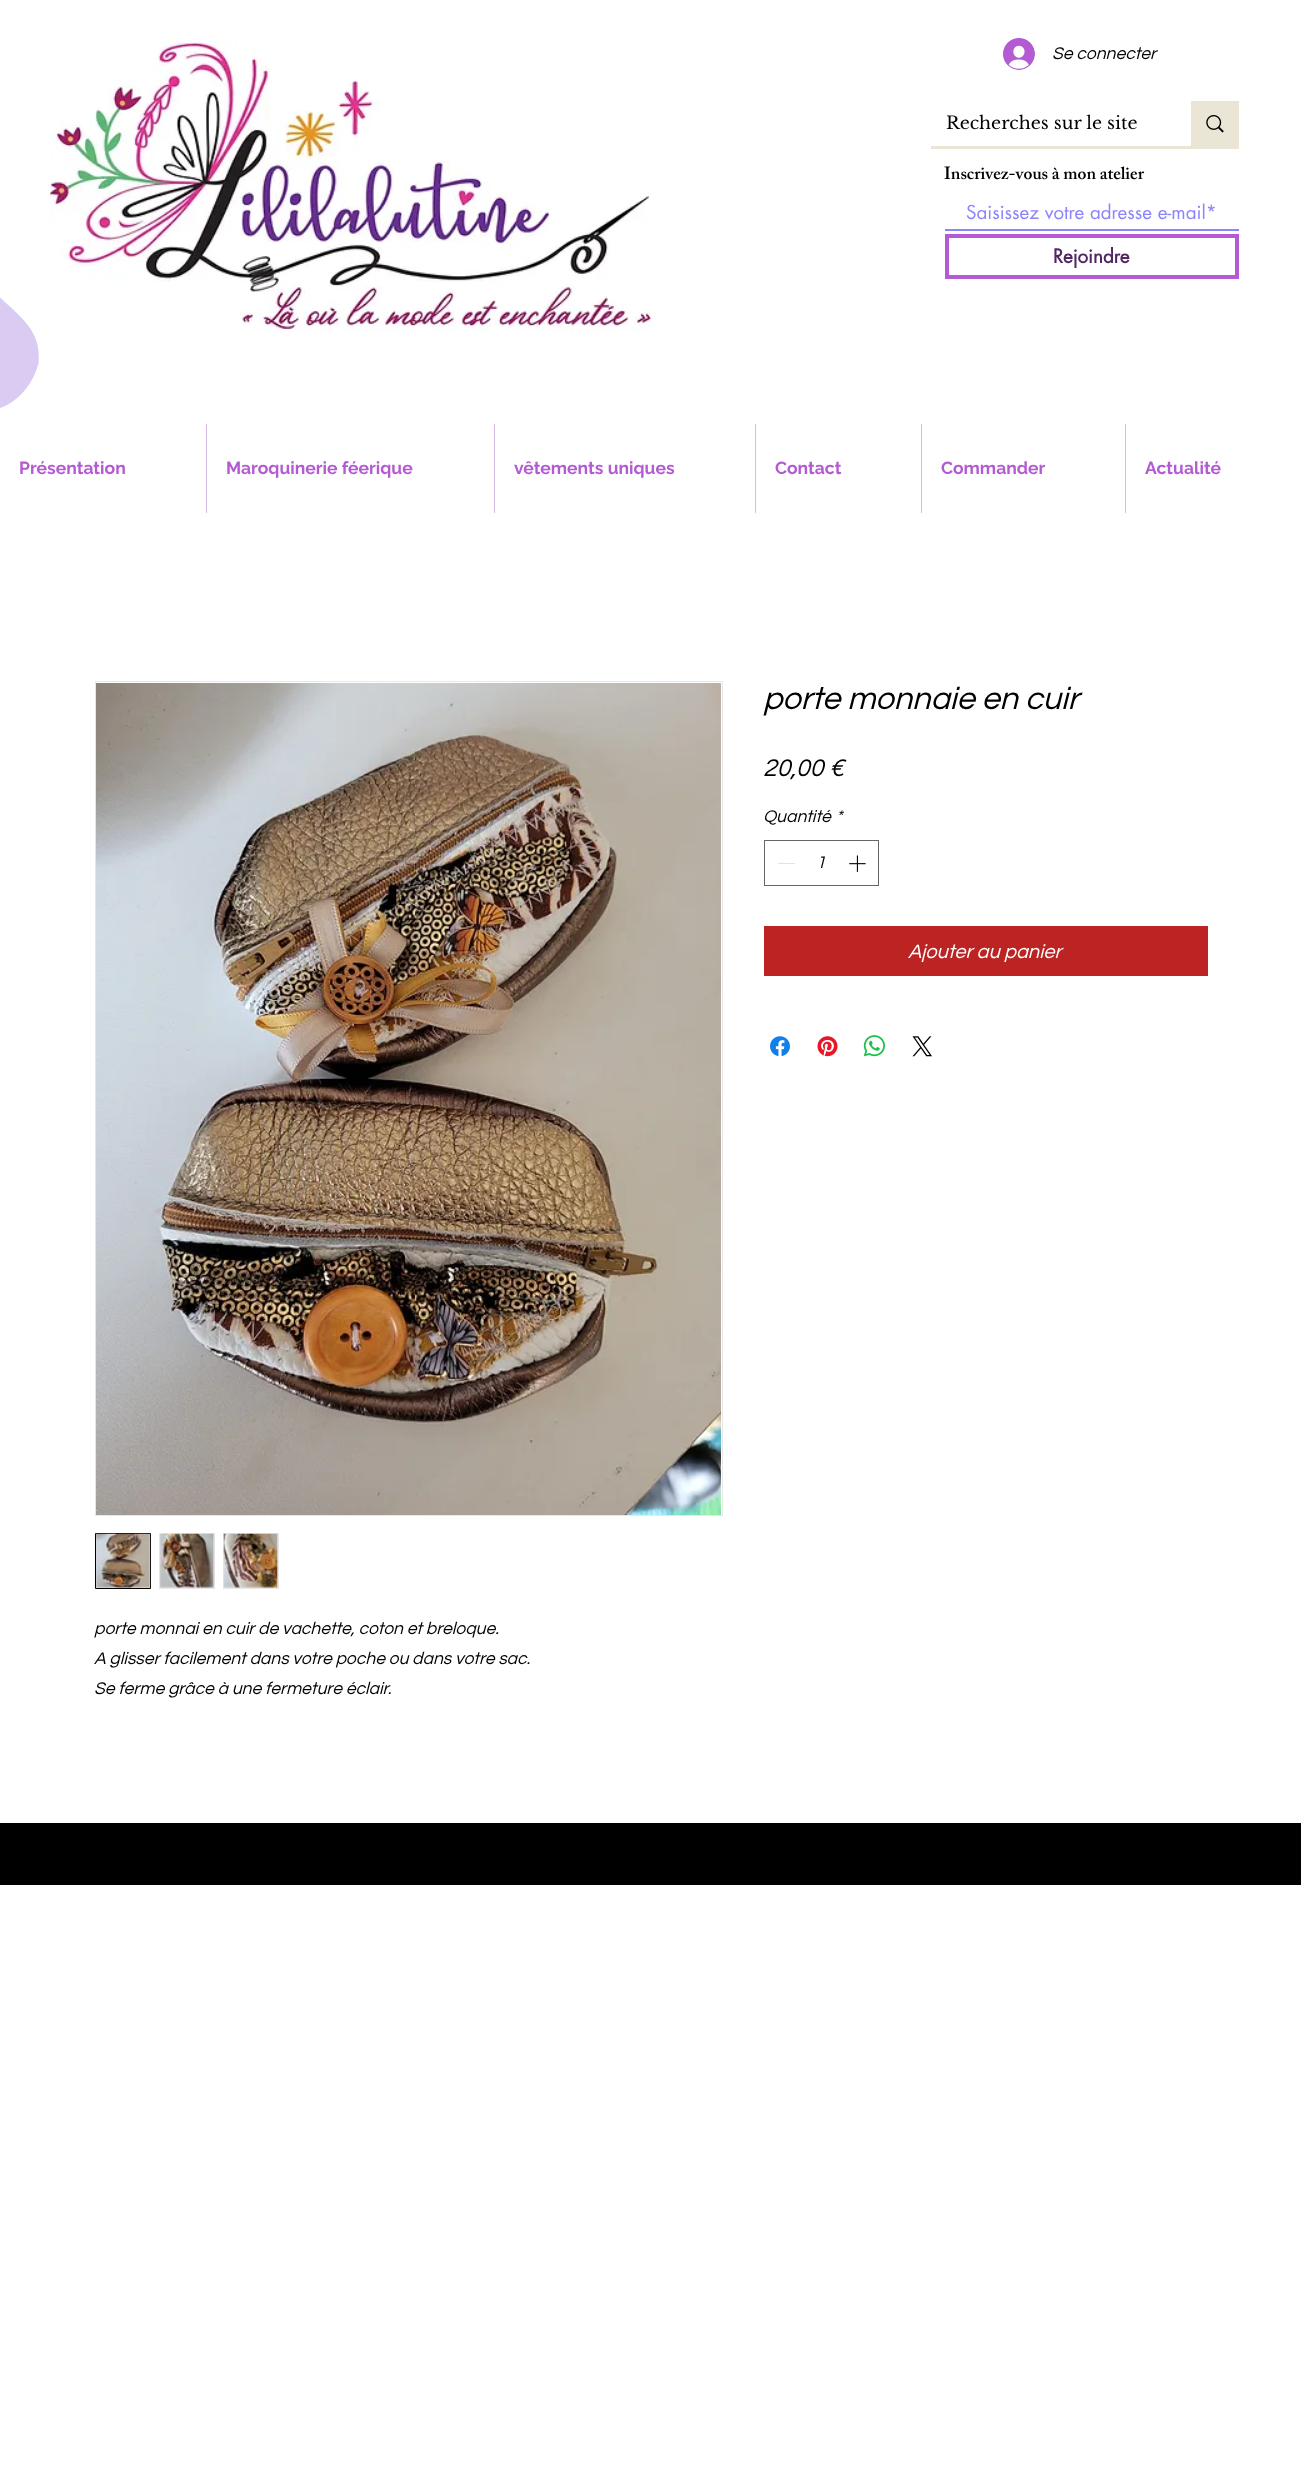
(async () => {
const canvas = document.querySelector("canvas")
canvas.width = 1301
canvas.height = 2470
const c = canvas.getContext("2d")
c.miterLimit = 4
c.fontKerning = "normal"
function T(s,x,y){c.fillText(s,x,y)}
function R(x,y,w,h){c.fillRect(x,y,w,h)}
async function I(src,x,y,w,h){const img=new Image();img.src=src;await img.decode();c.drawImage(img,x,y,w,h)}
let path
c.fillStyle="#fff"
R(0,0,1301,2470)
await I("1.png",50,41,602,291)
await I("2.png",1003,38,32,32)
c.font="italic 17.5px Questrial"
c.fillStyle="#000"
T("Se connecter",1052,59)
c.fillStyle="#ebe5d6"
R(931,146,308,3)
c.font="17.5px Libre Baskerville"
c.fillStyle="#000"
T("Recherches sur le site",946,129)
c.fillStyle="#ebe5d6"
R(1191,101,48,45)
await I("3.png",1206,115,18,18)
c.font="600 17.5px 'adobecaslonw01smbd'"
c.fillStyle="#000"
T("Inscrivez-vous à mon atelier",944,179)
c.fillStyle="#8c84fa"
path = new Path2D("M945 229v2h294v-33v31z")
c.fill(path)
c.font="18.75px futura"
T("Saisissez votre adresse e-mail*",966,219)
c.strokeStyle="#b45ad4"
c.lineWidth=4
c.strokeRect(947,236,290,41)
c.font="bold 18.75px futura"
c.fillStyle="#522662"
T("Rejoindre",1053,263)
await I("4.png",0,297,39,111)
c.font="bold 17.5px Raleway"
c.fillStyle="#b45ad3"
T("Présentation",19,474)
c.fillStyle="#d8bde2"
R(206,424,1,89)
c.fillStyle="#b45ad3"
T("Maroquinerie féerique",226,474)
c.fillStyle="#d8bde2"
R(494,424,1,89)
c.fillStyle="#b45ad3"
T("vêtements uniques",514,474)
c.fillStyle="#d8bde2"
R(755,424,1,89)
c.fillStyle="#b45ad3"
T("Contact",775,474)
c.fillStyle="#d8bde2"
R(921,424,1,89)
c.fillStyle="#b45ad3"
T("Commander",941,474)
c.fillStyle="#d8bde2"
R(1125,424,1,89)
c.fillStyle="#b45ad3"
T("Actualité",1145,474)
c.font="italic 32.5px Questrial"
c.fillStyle="#000"
T("porte monnaie en cuir",763,709)
c.font="italic 25px Questrial"
T("20,00 €",763,776)
c.font="italic 17.5px Questrial"
T("Quantité",763,822)
T("*",836,822)
c.strokeStyle="#666"
c.lineWidth=1
c.strokeRect(764.5,840.5,114,45)
c.fillStyle="#e3e3e3"
R(778,863,17,1)
c.fillStyle="#000"
T("1",816,868)
await I("5.png",849,855,17,17)
c.fillStyle="#bb2423"
R(764,926,444,50)
c.font="italic 20px Questrial"
c.fillStyle="#fff"
T("Ajouter au panier",908,958)
await I("6.png",770,1036,20,21)
await I("7.png",817,1036,21,21)
await I("8.png",863,1035,22,22)
await I("9.png",912,1036,20,21)
c.strokeStyle="#e8e6e6"
c.strokeRect(95.5,681.5,627,834)
await I("10.png",96,683,625,832)
c.fillStyle="#e8e6e6"
c.beginPath()
c.rect(95.5,1533.5,55,55)
c.fill()
c.strokeStyle="#000"
c.stroke()
await I("11.png",96,1533,55,55)
R(159,1533,56,56)
await I("12.png",160,1533,55,55)
R(223,1533,56,56)
await I("13.png",223,1533,55,55)
c.font="italic 17.5px Questrial"
c.fillStyle="#000"
T("porte monnai en cuir de vachette, coton et breloque.",94,1634)
T("A glisser facilement dans votre poche ou dans votre sac.",94,1664)
T("Se ferme grâce à une fermeture éclair.",94,1694)
R(0,1823,1301,62)
})()
